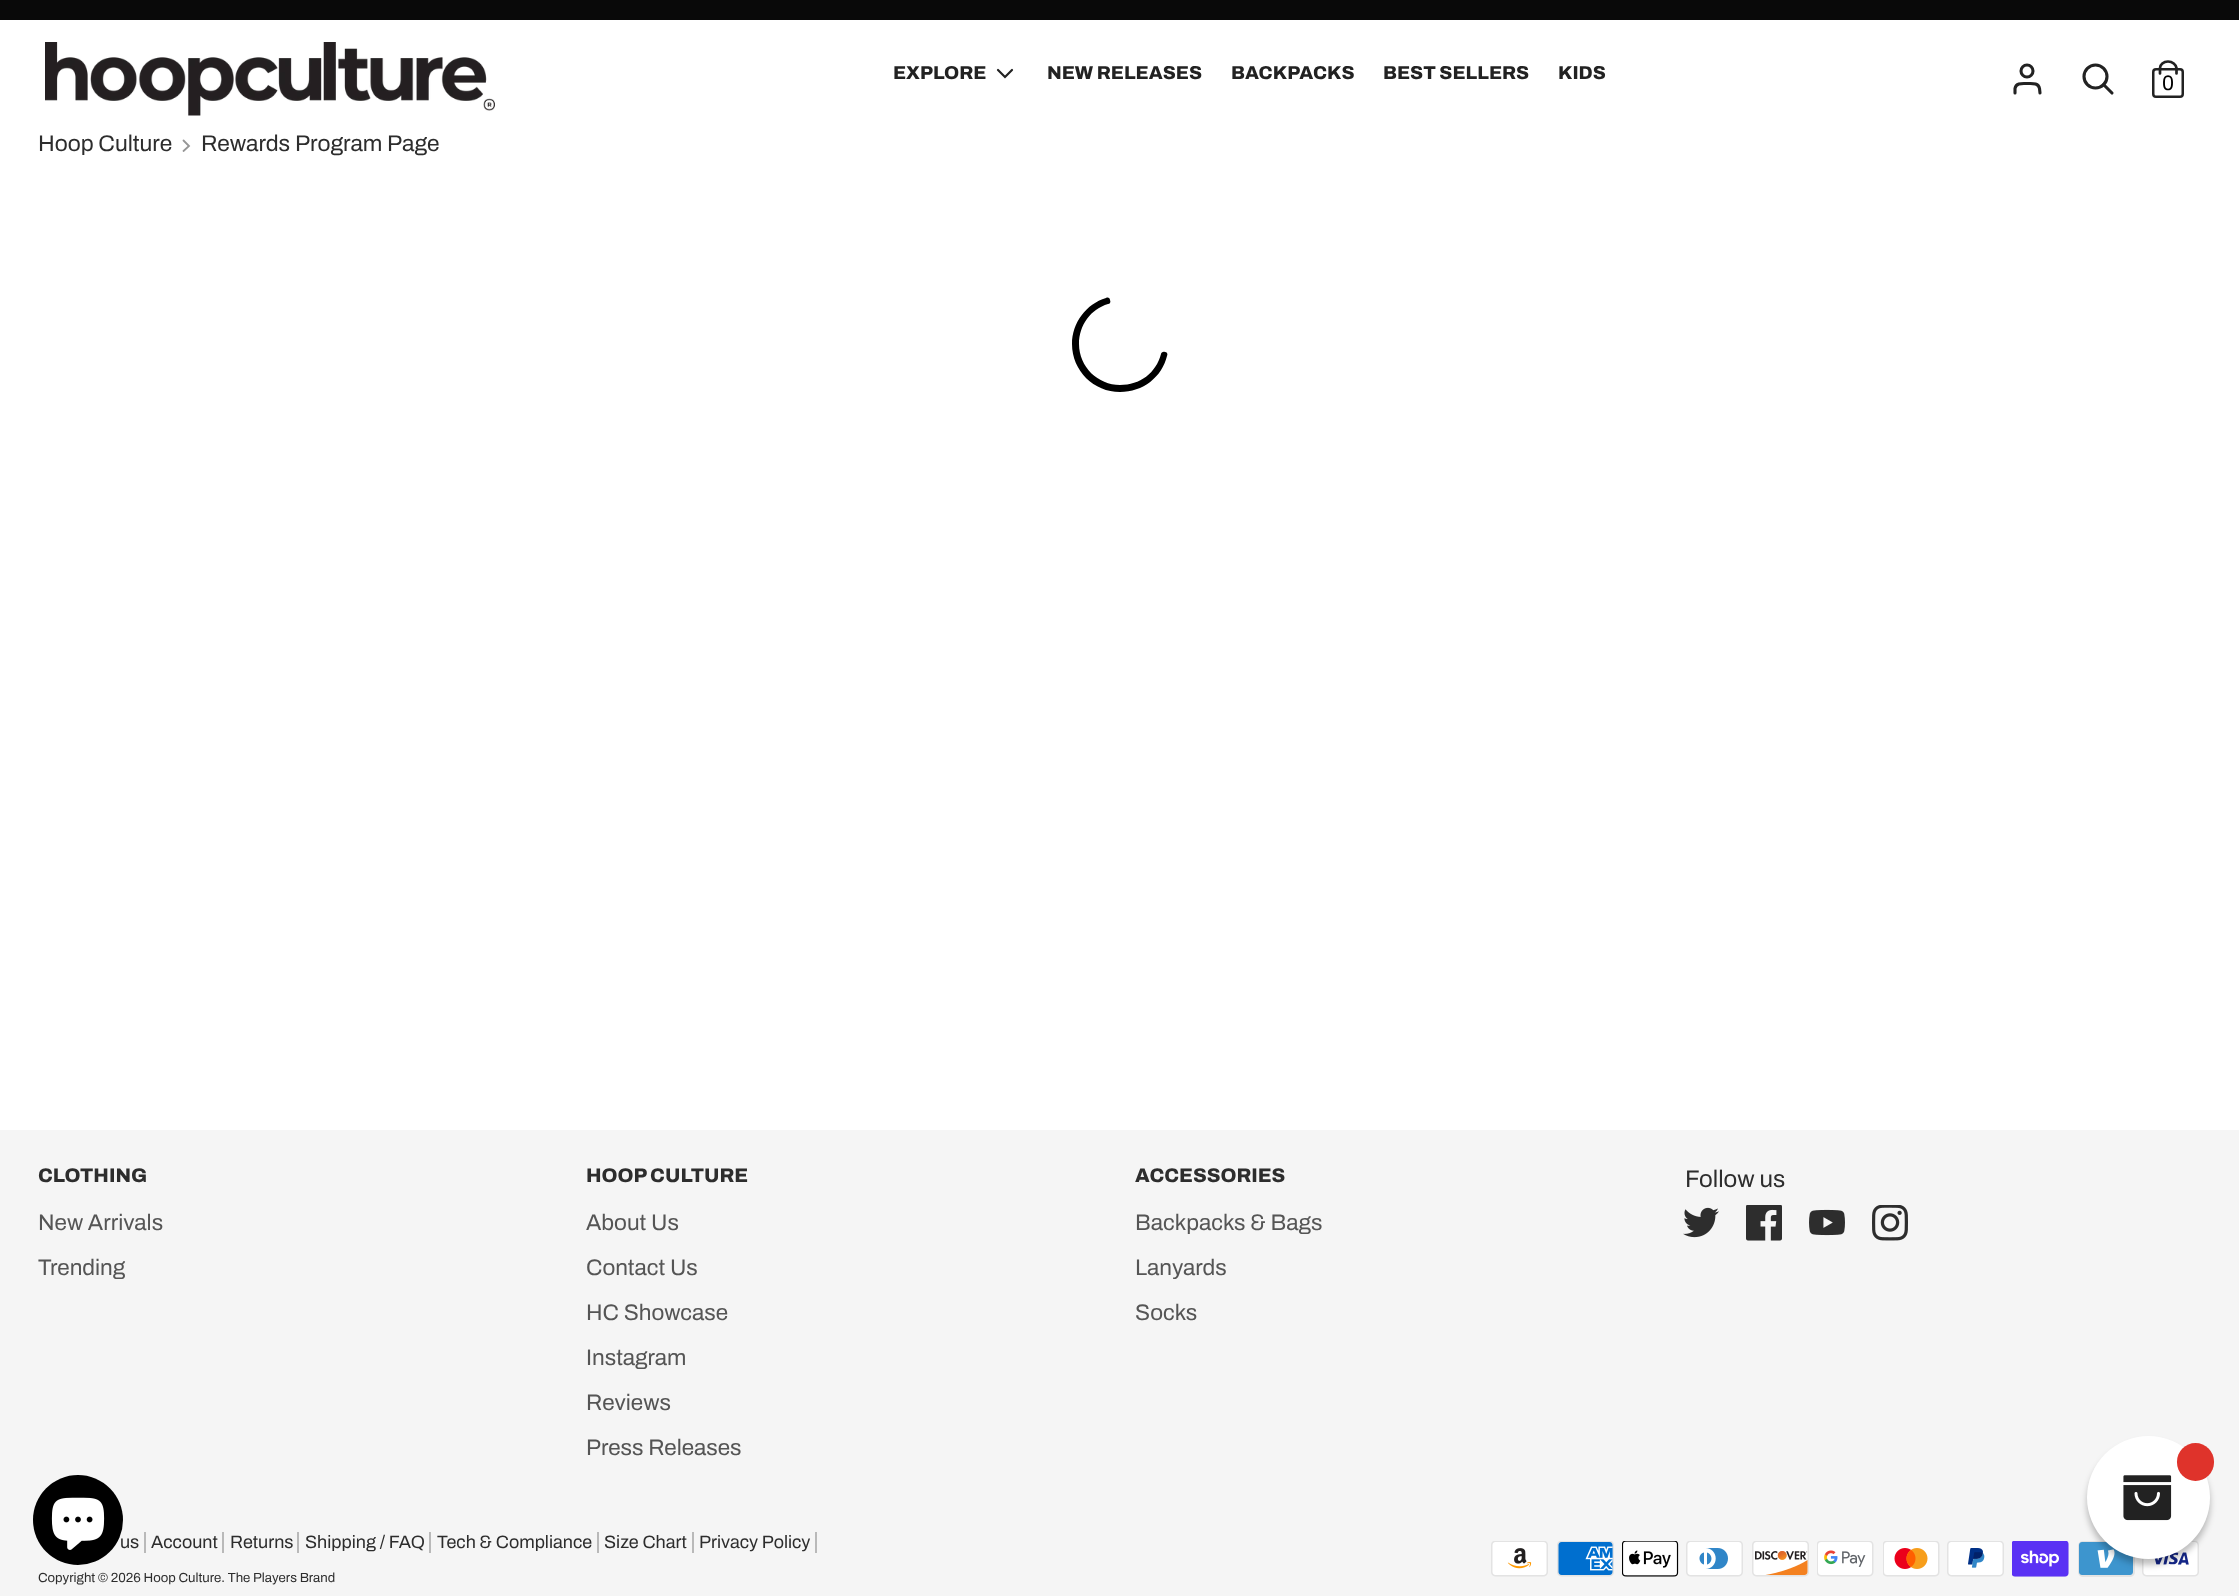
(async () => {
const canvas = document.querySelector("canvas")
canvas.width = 2239
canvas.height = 1596
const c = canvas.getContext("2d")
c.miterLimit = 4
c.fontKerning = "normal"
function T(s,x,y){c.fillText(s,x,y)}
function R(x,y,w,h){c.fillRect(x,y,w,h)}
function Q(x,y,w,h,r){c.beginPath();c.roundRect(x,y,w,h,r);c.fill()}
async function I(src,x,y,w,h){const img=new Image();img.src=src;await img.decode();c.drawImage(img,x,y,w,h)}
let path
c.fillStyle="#fff"
R(0,0,2239,1596)
c.fillStyle="#090909"
R(0,0,2239,20)
await I("1.png",45,42,450,74)
c.font="800 18.75px Archivo"
c.fillStyle="#222"
T("EXPLORE",893,79)
path = new Path2D("M998 70l7 7l7-7")
c.strokeStyle="#222"
c.lineWidth=2.2
c.lineCap="round"
c.stroke(path)
T("NEW RELEASES",1047,79)
T("BACKPACKS",1231,79)
T("BEST SELLERS",1383,79)
T("KIDS",1558,79)
path = new Path2D("M2040 93l-.5-4.5c-1-6-7.5-5-12.5-5c-4.5 0-11-1-12 5v4.5")
c.lineWidth=3.1
c.stroke(path)
c.beginPath()
c.arc(2027,71,6,0,7)
c.stroke()
c.beginPath()
c.arc(2095.5,76.5,11.5,0,7)
c.stroke()
path = new Path2D("M2112 93l-8.5-8.5")
c.stroke(path)
c.beginPath()
c.roundRect(2153.25,69.25,29.5,27.5,2.75)
c.lineWidth=2.5
c.stroke()
path = new Path2D("M2160 73.5v-5.5c0-3.5 3.5-6.5 8-6.5c4.5 0 8 3 8.5 6.5v5.5")
c.lineWidth=2.7
c.stroke(path)
c.font="21px Archivo"
c.fillStyle="#000"
T("0",2162,90)
c.font="22.75px Archivo"
c.fillStyle="#2d2d2d"
T("Hoop Culture",38,151)
path = new Path2D("M183.5 151l5.5-5l-5.5-5.5")
c.strokeStyle="#969696"
c.lineWidth=1.8
c.stroke(path)
T("Rewards Program Page",201,151)
c.fillStyle="#000"
path = new Path2D("M1106 298c-20 6-34 25-34 46c0 27 22 48 48 48c23 0 42-15 47-36c1-2 0-4-2-4c-2-1-4 1-4 2c-5 19-21 31-41 31c-22 0-41-18-41-41c0-19 12-35 29-40c2 0 3-2 2-4c0-2-2-3-4-2z")
c.fill(path)
c.fillStyle="#f5f5f5"
R(0,1130,2239,466)
c.font="800 19.75px Archivo"
c.fillStyle="#2d2d2d"
T("CLOTHING",38,1182)
c.font="22.5px Archivo"
c.fillStyle="#555"
T("New Arrivals",38,1230)
T("Trending",38,1275)
c.font="800 19.75px Archivo"
c.fillStyle="#2d2d2d"
T("HOOP CULTURE",586,1182)
c.font="22.5px Archivo"
c.fillStyle="#555"
T("About Us",586,1230)
T("Contact Us",586,1275)
T("HC Showcase",586,1320)
T("Instagram",586,1365)
T("Reviews",586,1410)
T("Press Releases",586,1455)
c.font="800 19.75px Archivo"
c.fillStyle="#2d2d2d"
T("ACCESSORIES",1135,1182)
c.font="22.5px Archivo"
c.fillStyle="#555"
T("Backpacks & Bags",1135,1230)
T("Lanyards",1135,1275)
T("Socks",1135,1320)
c.font="24px Archivo"
c.fillStyle="#2d2d2d"
T("Follow us",1685,1187)
await I("2.png",1683,1207,36,31)
await I("3.png",1746,1205,36,36)
await I("4.png",1809,1209,36,27)
await I("5.png",1872,1205,36,36)
c.font="18px Archivo"
T("us",120,1548)
c.fillStyle="#b9b9b9"
R(144,1532,2,21)
c.fillStyle="#2d2d2d"
T("Account",151,1548)
c.fillStyle="#b9b9b9"
R(222,1532,2,21)
c.fillStyle="#2d2d2d"
T("Returns",230,1548)
c.fillStyle="#b9b9b9"
R(297,1532,2,21)
c.fillStyle="#2d2d2d"
T("Shipping / FAQ",305,1548)
c.fillStyle="#b9b9b9"
R(429,1532,2,21)
c.fillStyle="#2d2d2d"
T("Tech & Compliance",437,1548)
c.fillStyle="#b9b9b9"
R(597,1532,2,21)
c.fillStyle="#2d2d2d"
T("Size Chart",604,1548)
c.fillStyle="#b9b9b9"
R(692,1532,2,21)
c.fillStyle="#2d2d2d"
T("Privacy Policy",699,1548)
c.fillStyle="#b9b9b9"
R(815,1532,2,21)
c.font="13.2px Archivo"
c.fillStyle="#2d2d2d"
T("Copyright © 2026 Hoop Culture. The Players Brand",38,1582)
await I("6.png",1491,1541,57,36)
await I("7.png",1557,1541,57,36)
await I("8.png",1622,1541,57,36)
await I("9.png",1686,1541,57,36)
await I("10.png",1752,1541,57,36)
await I("11.png",1817,1541,57,36)
await I("12.png",1883,1541,57,36)
await I("13.png",1947,1541,57,36)
await I("14.png",2012,1541,57,36)
await I("15.png",2078,1541,57,36)
await I("16.png",2142,1541,57,36)
c.fillStyle="#00000040"
c.filter="blur(3px)"
c.beginPath()
c.roundRect(2087,1442,123,123,61.5)
c.fill()
c.filter="none"
c.fillStyle="#fff"
c.beginPath()
c.arc(2148.5,1497.5,61.5,0,7)
c.fill()
c.fillStyle="#df332b"
Q(2177,1443,37,38,18.5)
await I("17.png",2123,1475,49,46)
c.fillStyle="#000"
c.beginPath()
c.arc(78,1520,45,0,7)
c.fill()
await I("18.png",51,1497,54,53)
})()
